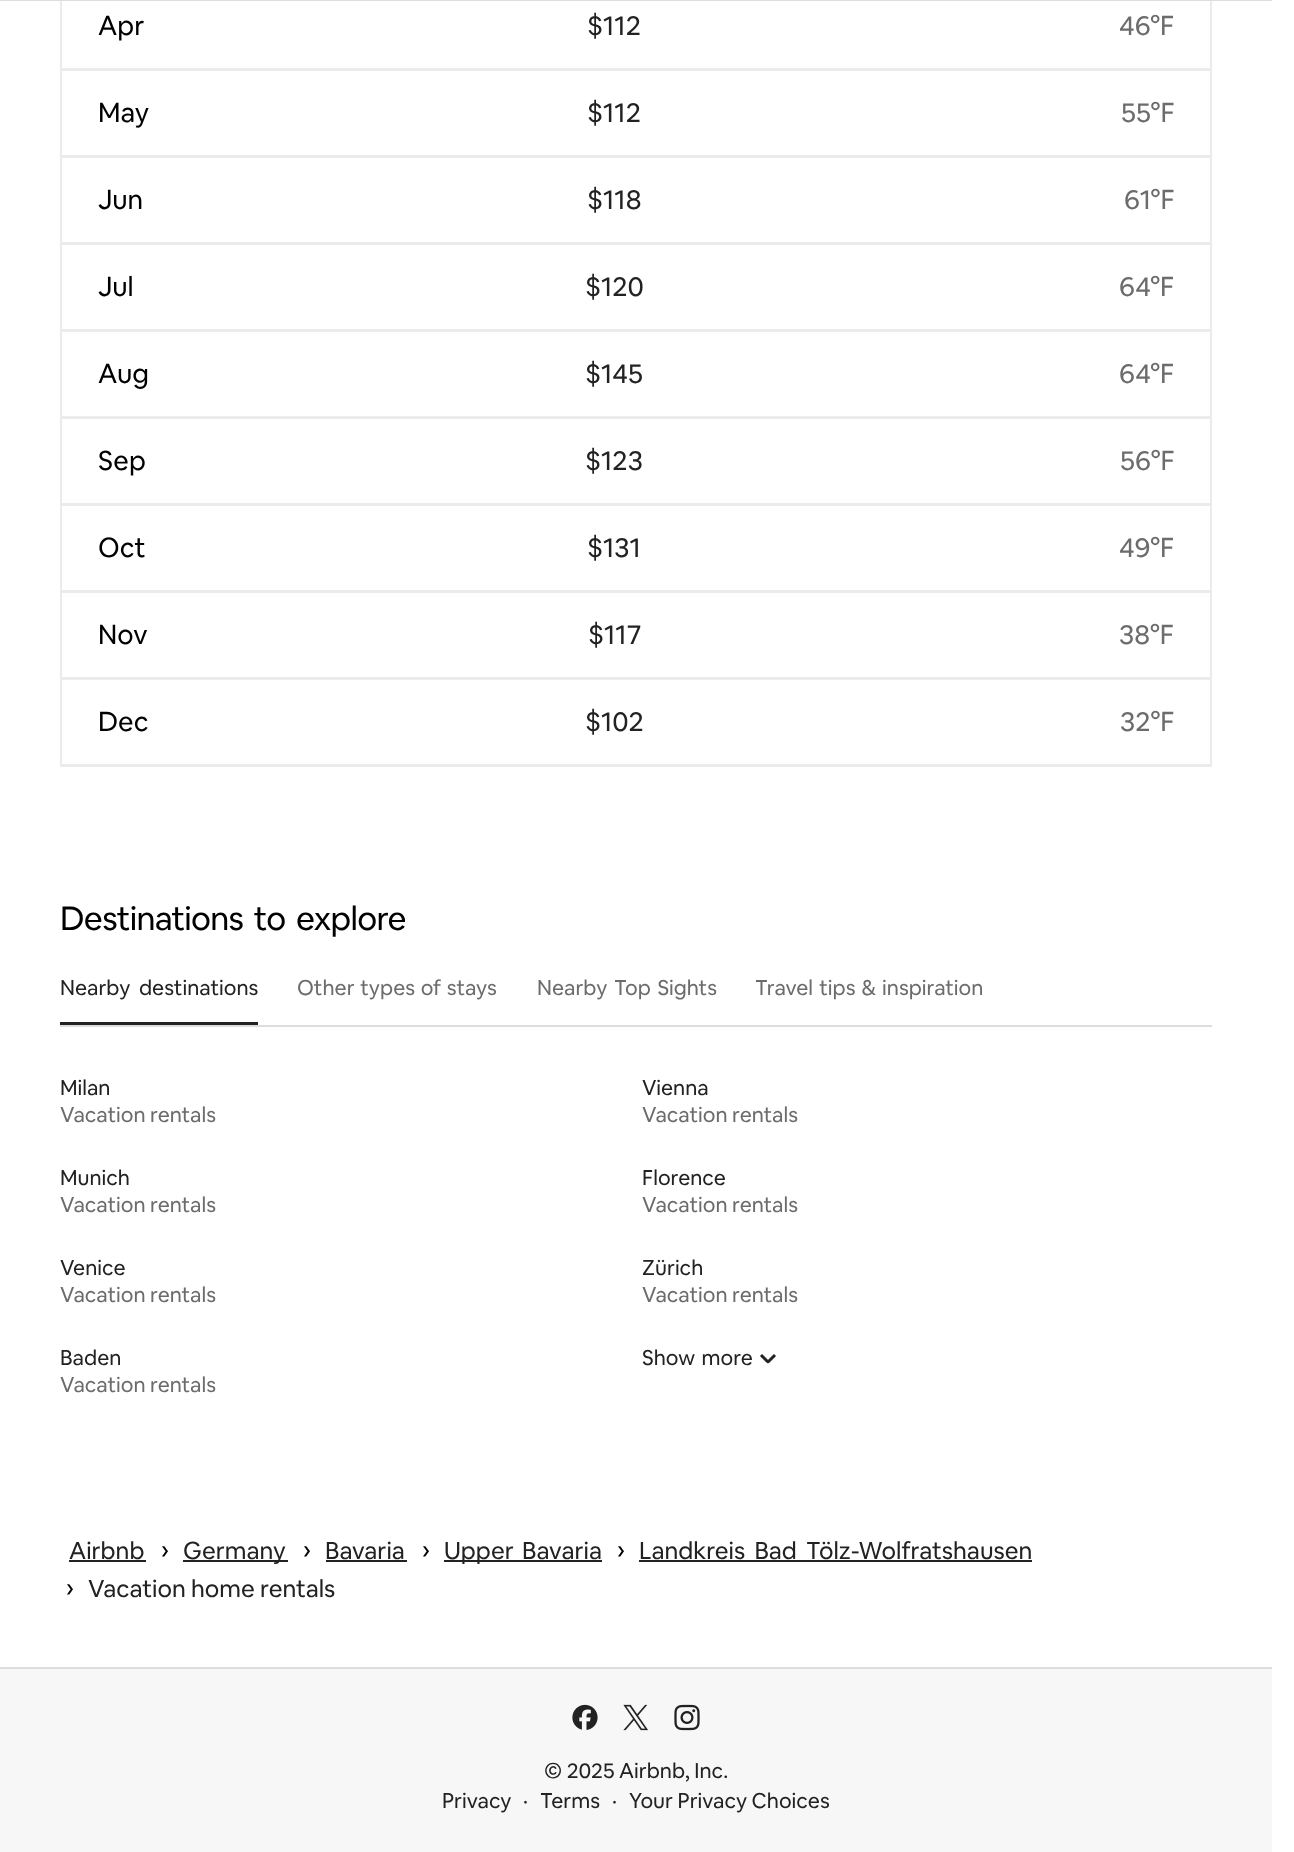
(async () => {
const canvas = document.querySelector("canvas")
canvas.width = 1294
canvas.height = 1852
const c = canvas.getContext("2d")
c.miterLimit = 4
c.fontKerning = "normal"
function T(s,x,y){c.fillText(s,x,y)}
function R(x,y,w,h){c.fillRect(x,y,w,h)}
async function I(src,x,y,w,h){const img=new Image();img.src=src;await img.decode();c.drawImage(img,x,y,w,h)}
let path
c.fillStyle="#fff"
R(0,0,1294,1852)
c.strokeStyle="#ebebeb"
c.lineWidth=2
c.strokeRect(61,-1,1150,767)
c.fillStyle="#ddd"
R(0,0,1272,1)
c.fillStyle="#ebebeb"
R(62,68,355,3)
c.font="27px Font"
c.fillStyle="#000"
T("Apr",98,35)
c.fillStyle="#ebebeb"
R(62,155,355,3)
c.fillStyle="#000"
T("May",98,122)
c.fillStyle="#ebebeb"
R(62,242,355,3)
c.fillStyle="#000"
T("Jun",98,209)
c.fillStyle="#ebebeb"
R(62,329,355,3)
c.fillStyle="#000"
T("Jul",98,296)
c.fillStyle="#ebebeb"
R(62,416,355,3)
c.fillStyle="#000"
T("Aug",98,383)
c.fillStyle="#ebebeb"
R(62,503,355,3)
c.fillStyle="#000"
T("Sep",98,470)
c.fillStyle="#ebebeb"
R(62,590,355,3)
c.fillStyle="#000"
T("Oct",98,557)
c.fillStyle="#ebebeb"
R(62,677,355,3)
c.fillStyle="#000"
T("Nov",98,644)
c.fillStyle="#ebebeb"
R(62,764,1149,1)
c.fillStyle="#000"
T("Dec",98,731)
c.fillStyle="#ebebeb"
R(417,68,395,3)
c.fillStyle="#222"
T("$112",587,35)
c.fillStyle="#ebebeb"
R(417,155,395,3)
c.fillStyle="#222"
T("$112",587,122)
c.fillStyle="#ebebeb"
R(417,242,395,3)
c.fillStyle="#222"
T("$118",587,209)
c.fillStyle="#ebebeb"
R(417,329,395,3)
c.fillStyle="#222"
T("$120",585,296)
c.fillStyle="#ebebeb"
R(417,416,395,3)
c.fillStyle="#222"
T("$145",585,383)
c.fillStyle="#ebebeb"
R(417,503,395,3)
c.fillStyle="#222"
T("$123",585,470)
c.fillStyle="#ebebeb"
R(417,590,395,3)
c.fillStyle="#222"
T("$131",587,557)
c.fillStyle="#ebebeb"
R(417,677,395,3)
c.fillStyle="#222"
T("$117",588,644)
T("$102",585,731)
c.fillStyle="#ebebeb"
R(812,68,399,3)
c.fillStyle="#6c6c6c"
T("46°F",1119,35)
c.fillStyle="#ebebeb"
R(812,155,399,3)
c.fillStyle="#6c6c6c"
T("55°F",1121,122)
c.fillStyle="#ebebeb"
R(812,242,399,3)
c.fillStyle="#6c6c6c"
T("61°F",1124,209)
c.fillStyle="#ebebeb"
R(812,329,399,3)
c.fillStyle="#6c6c6c"
T("64°F",1119,296)
c.fillStyle="#ebebeb"
R(812,416,399,3)
c.fillStyle="#6c6c6c"
T("64°F",1119,383)
c.fillStyle="#ebebeb"
R(812,503,399,3)
c.fillStyle="#6c6c6c"
T("56°F",1120,470)
c.fillStyle="#ebebeb"
R(812,590,399,3)
c.fillStyle="#6c6c6c"
T("49°F",1119,557)
c.fillStyle="#ebebeb"
R(812,677,399,3)
c.fillStyle="#6c6c6c"
T("38°F",1119,644)
T("32°F",1120,731)
c.letterSpacing="-0.7px"
c.wordSpacing="4px"
c.font="33px Font"
c.fillStyle="#000"
T("Destinations to explore",60,930)
c.letterSpacing="0px"
c.font="21px Font"
c.fillStyle="#222"
T("Nearby destinations",60,995)
R(60,1022,198,3)
c.wordSpacing="1px"
c.fillStyle="#6c6c6c"
T("Other types of stays",297,995)
c.wordSpacing="2px"
T("Nearby Top Sights",537,995)
c.wordSpacing="1.5px"
T("Travel tips & inspiration",755,995)
c.fillStyle="#ddd"
R(60,1025,1152,2)
c.wordSpacing="0px"
c.fillStyle="#222"
T("Milan",60,1095)
c.fillStyle="#6c6c6c"
T("Vacation rentals",60,1122)
c.fillStyle="#222"
T("Vienna",642,1095)
c.fillStyle="#6c6c6c"
T("Vacation rentals",642,1122)
c.fillStyle="#222"
T("Munich",60,1185)
c.fillStyle="#6c6c6c"
T("Vacation rentals",60,1212)
c.fillStyle="#222"
T("Florence",642,1185)
c.fillStyle="#6c6c6c"
T("Vacation rentals",642,1212)
c.fillStyle="#222"
T("Venice",60,1275)
c.fillStyle="#6c6c6c"
T("Vacation rentals",60,1302)
c.fillStyle="#222"
T("Zürich",642,1275)
c.fillStyle="#6c6c6c"
T("Vacation rentals",642,1302)
c.fillStyle="#222"
T("Baden",60,1365)
c.fillStyle="#6c6c6c"
T("Vacation rentals",60,1392)
c.wordSpacing="2px"
c.fillStyle="#222"
T("Show more",642,1365)
path = new Path2D("M775 1355l-6.5 6.5c-.5 .5-.5 .5-1 0l-6.5-6.5")
c.strokeStyle="#222"
c.lineWidth=3
c.stroke(path)
c.wordSpacing="0px"
c.font="24px Font"
T("Airbnb",69,1559)
R(69,1560,77,2)
c.font="27px Font"
c.fillStyle="#000"
T("›",161,1559)
c.fillStyle="#222"
R(183,1560,105,2)
c.font="24px Font"
T("Germany",183,1559)
c.font="27px Font"
c.fillStyle="#000"
T("›",303,1559)
c.font="24px Font"
c.fillStyle="#222"
T("Bavaria",325,1559)
R(326,1560,81,2)
c.font="27px Font"
c.fillStyle="#000"
T("›",422,1559)
c.fillStyle="#222"
R(444,1560,158,2)
c.wordSpacing="3px"
c.font="24px Font"
T("Upper Bavaria",444,1559)
c.wordSpacing="0px"
c.font="27px Font"
c.fillStyle="#000"
T("›",617,1559)
c.wordSpacing="4px"
c.font="24px Font"
c.fillStyle="#222"
T("Landkreis Bad Tölz-Wolfratshausen",639,1559)
R(639,1560,393,2)
c.wordSpacing="0px"
c.font="27px Font"
c.fillStyle="#000"
T("›",66,1597)
c.font="24px Font"
c.fillStyle="#222"
T("Vacation home rentals",88,1597)
c.fillStyle="#f7f7f7"
R(0,1669,1272,183)
c.fillStyle="#ddd"
R(0,1667,1272,2)
await I("1.png",572,1704,26,26)
await I("2.png",623,1704,25,27)
await I("3.png",674,1704,26,27)
c.font="21px Font"
c.fillStyle="#222"
T("© 2025 Airbnb, Inc.",544,1778)
T("Privacy",442,1808)
T("·",523,1808)
T("Terms",540,1808)
T("·",612,1808)
T("Your Privacy Choices",629,1808)
})()
